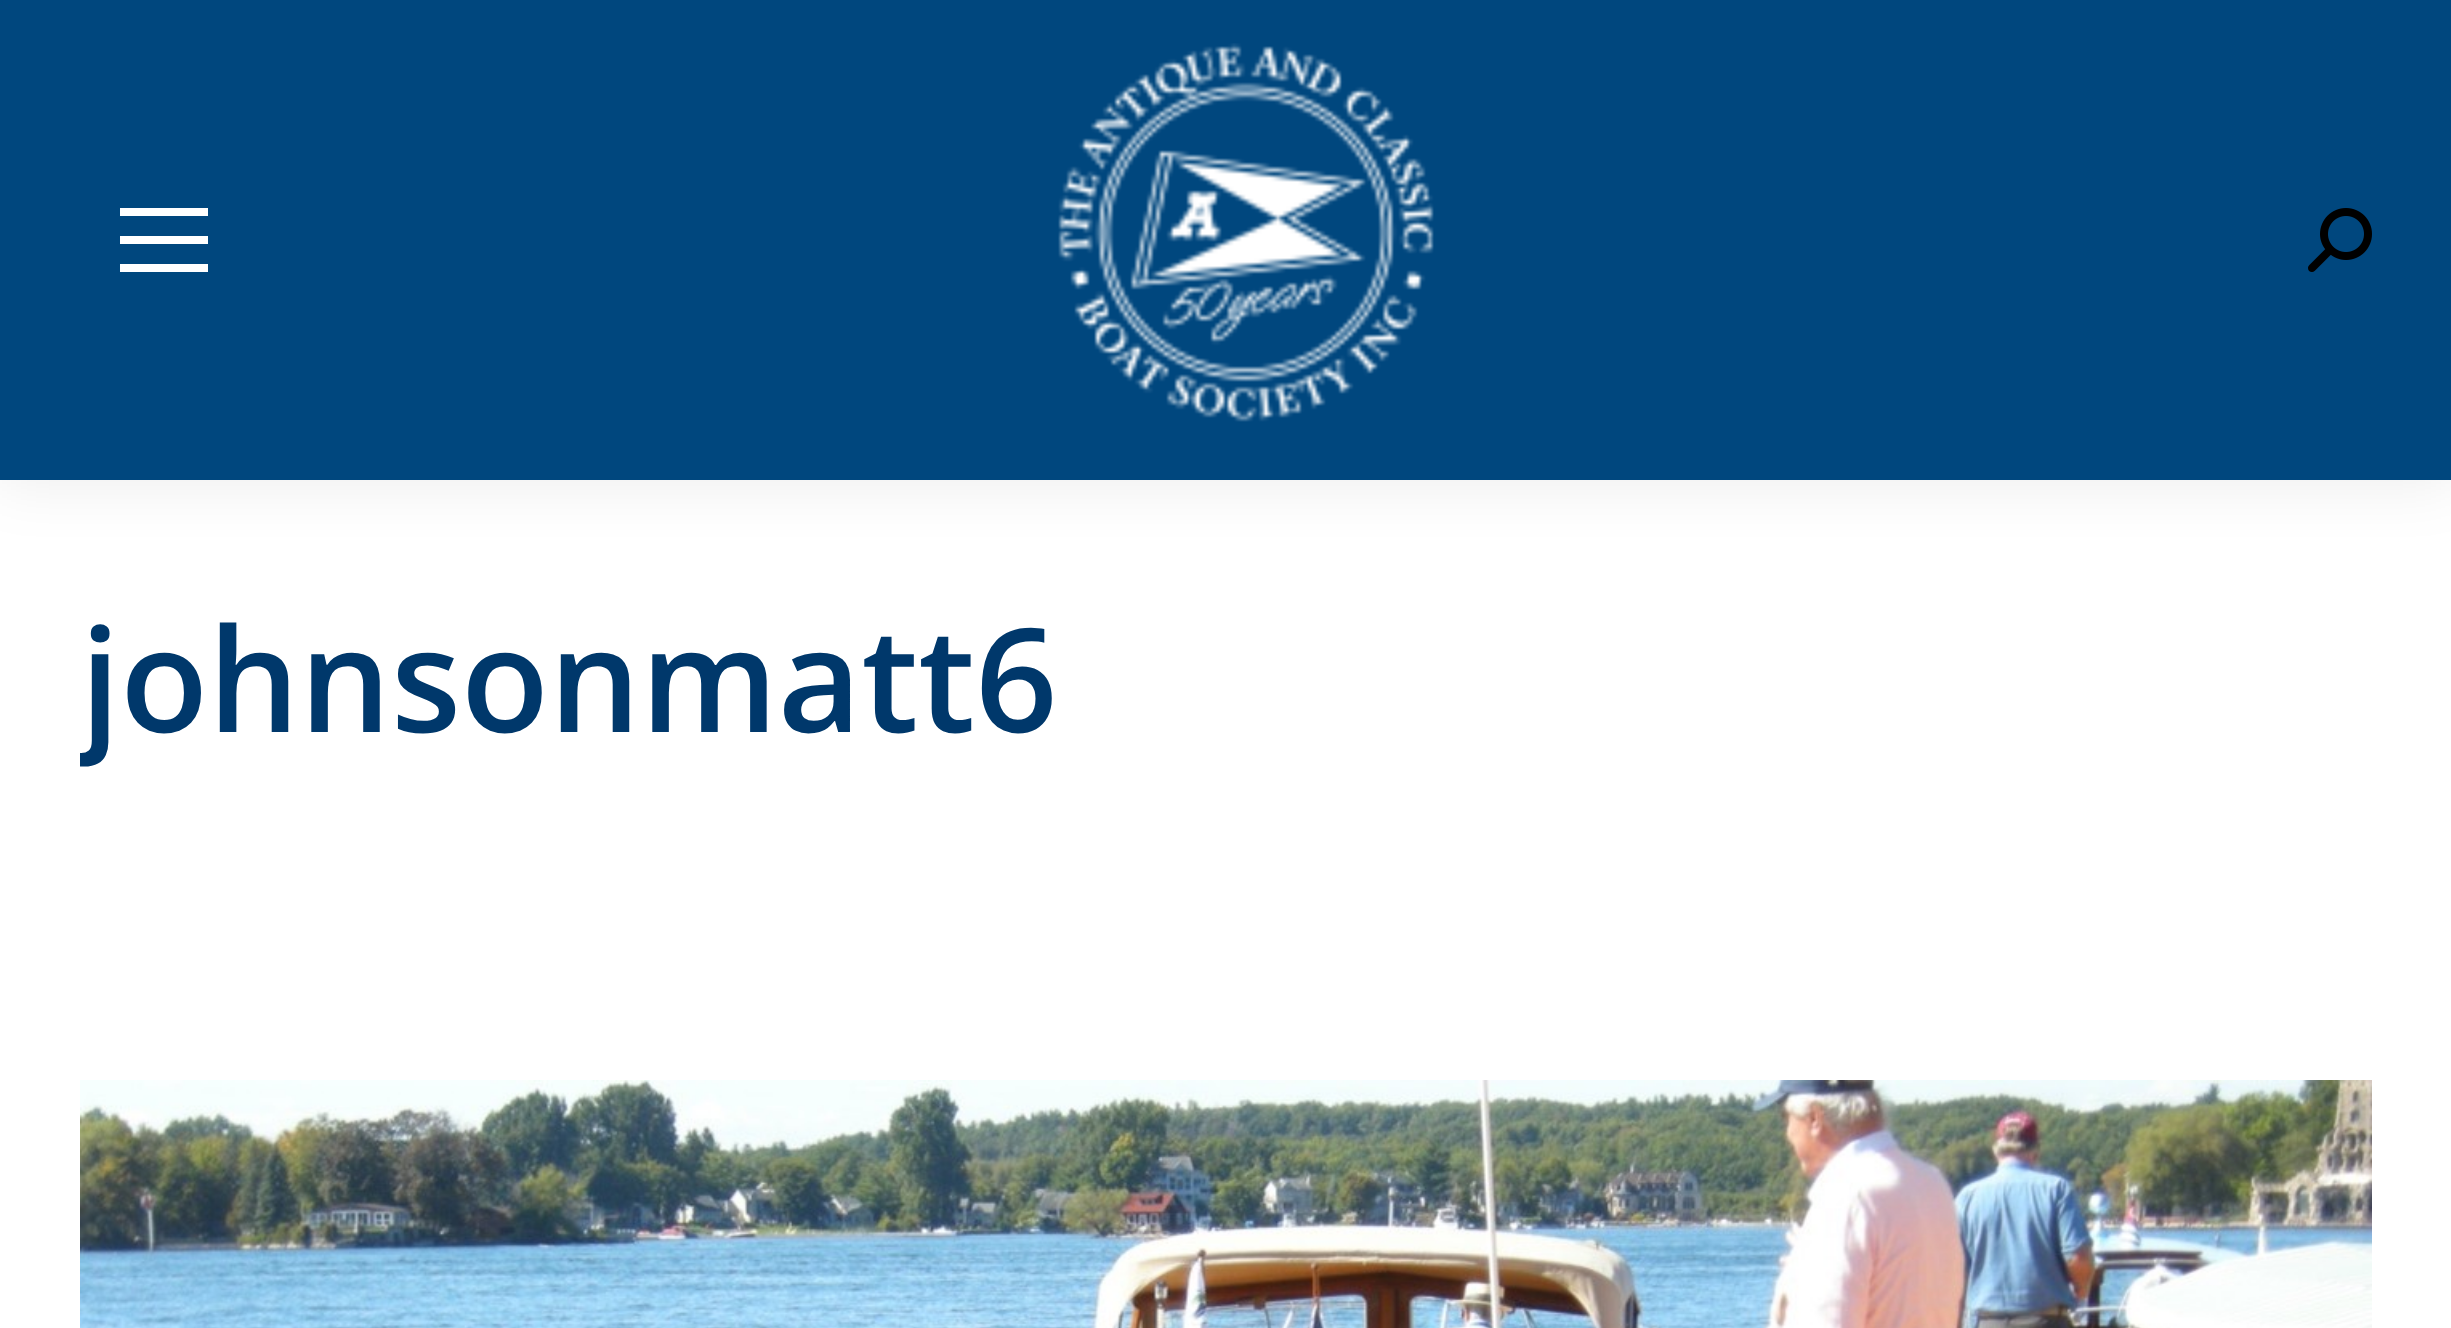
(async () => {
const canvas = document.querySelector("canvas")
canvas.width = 2451
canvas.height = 1328
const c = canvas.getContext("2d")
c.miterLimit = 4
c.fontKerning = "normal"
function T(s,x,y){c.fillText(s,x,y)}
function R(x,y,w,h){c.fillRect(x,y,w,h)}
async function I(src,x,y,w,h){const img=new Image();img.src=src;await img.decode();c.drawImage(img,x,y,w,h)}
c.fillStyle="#fff"
R(0,0,2451,1328)
c.fillStyle="#00000012"
c.filter="blur(30px)"
c.beginPath()
c.rect(-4,-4,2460,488)
c.fill()
c.filter="none"
c.fillStyle="#00477e"
R(0,0,2451,480)
c.fillStyle="#fff"
R(120,208,88,8)
R(120,236,88,8)
R(120,264,88,8)
await I("1.png",1058,43,376,379)
await I("2.png",2308,208,64,64)
c.save()
c.beginPath()
c.rect(80,592,976,176)
c.clip()
c.font="600 144px Open Sans"
c.fillStyle="#00386b"
T("johnsonmatt6",80,732)
c.restore()
await I("3.png",80,1080,2292,248)
})()
